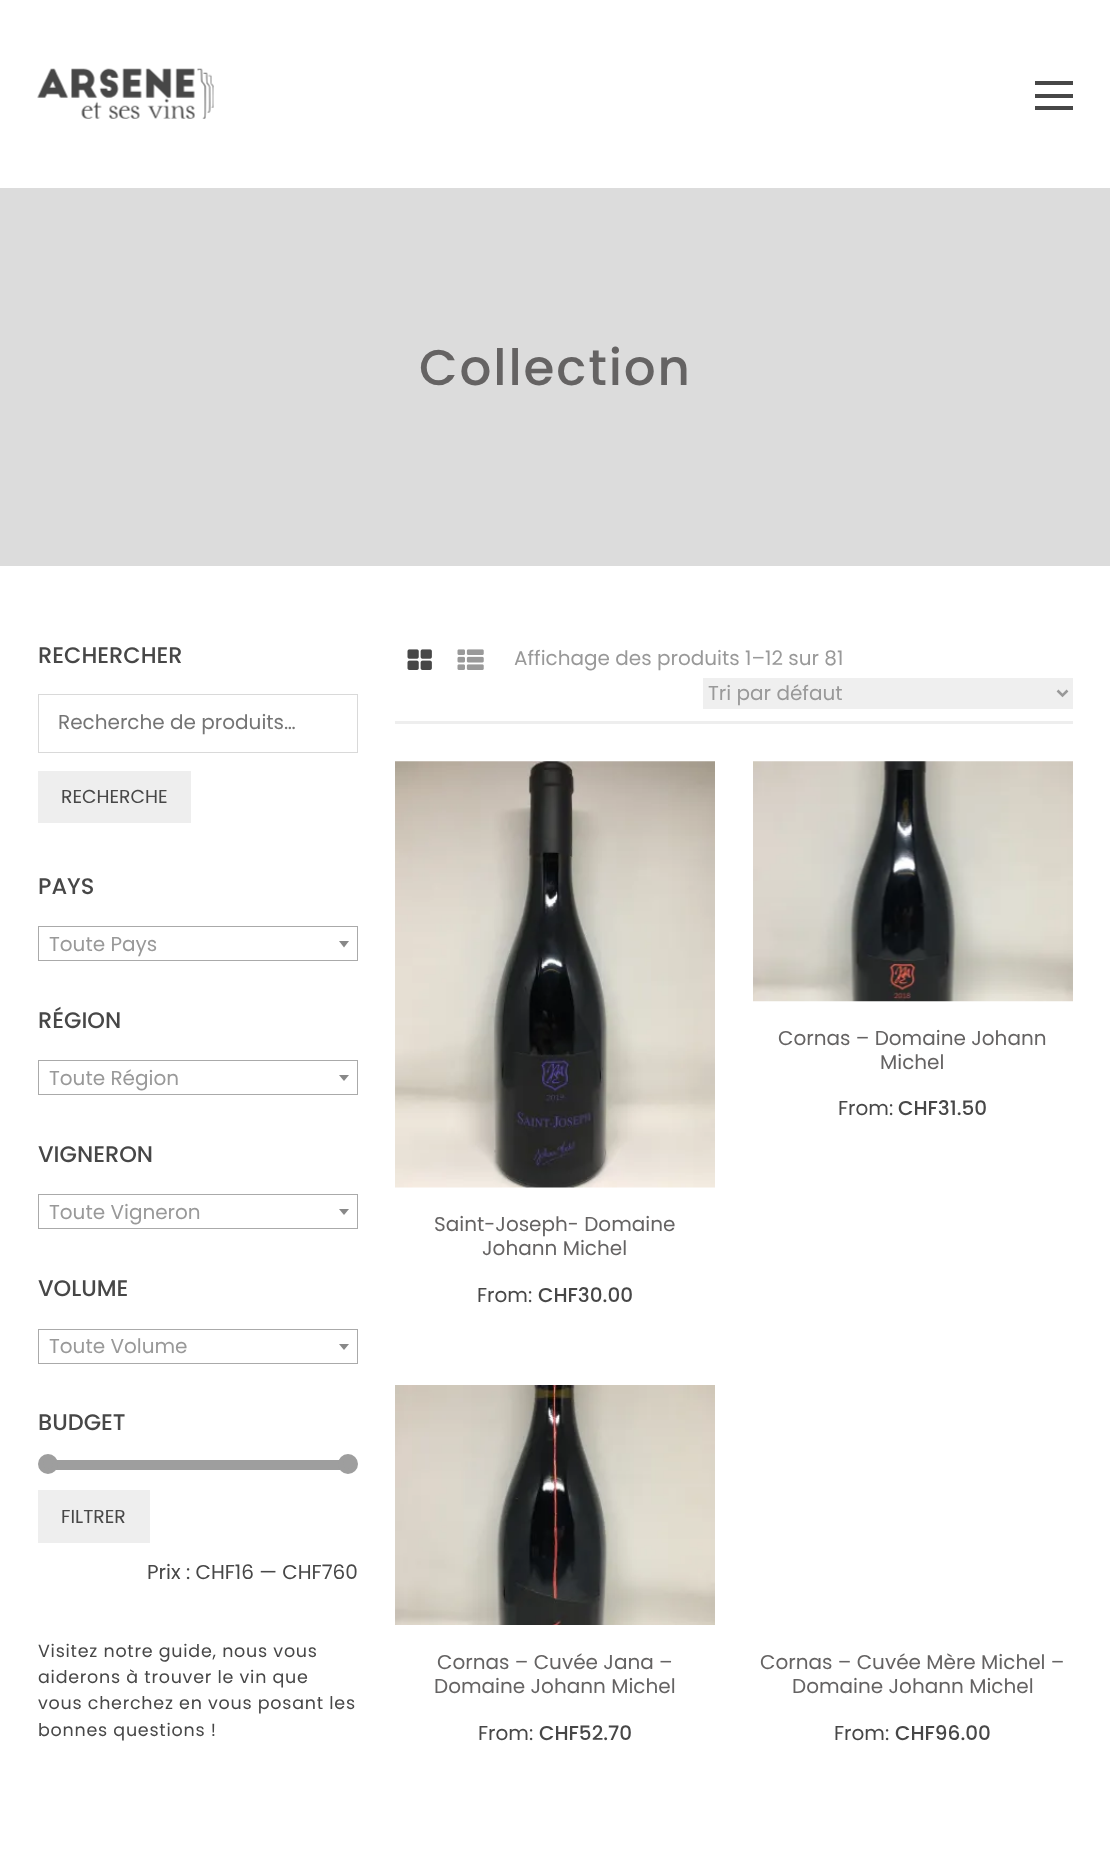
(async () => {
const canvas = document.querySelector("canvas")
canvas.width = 1110
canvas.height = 1850
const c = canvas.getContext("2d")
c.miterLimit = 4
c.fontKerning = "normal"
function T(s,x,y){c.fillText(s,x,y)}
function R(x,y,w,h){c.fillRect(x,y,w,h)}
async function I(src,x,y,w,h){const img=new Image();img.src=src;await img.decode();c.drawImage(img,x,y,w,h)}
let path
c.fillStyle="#fff"
R(0,0,1110,1850)
await I("1.png",37,68,177,51)
c.fillStyle="#474747"
R(1035,81,38,4)
R(1035,94,38,4)
R(1035,106,38,4)
c.fillStyle="#dcdcdc"
R(0,188,1110,378)
c.letterSpacing="1.9px"
c.font="500 50px Poppins"
c.fillStyle="#656363"
T("Collection",419,385)
c.letterSpacing="0px"
c.font="500 22.5px Poppins"
c.fillStyle="#474747"
T("RECHERCHER",38,663)
c.strokeStyle="#d9d9d9"
c.strokeRect(38.5,694.5,319,58)
c.font="20px Poppins"
c.fillStyle="#757575"
T("Recherche de produits…",58,729)
c.fillStyle="#eee"
R(38,771,153,52)
c.font="18.75px Poppins"
c.fillStyle="#474747"
T("RECHERCHE",61,803)
c.font="500 22.5px Poppins"
T("PAYS",38,894)
c.strokeStyle="#aaa"
c.strokeRect(38.5,926.5,319,34)
c.font="20px Poppins"
c.fillStyle="#999"
T("Toute Pays",49,951)
c.fillStyle="#888"
path = new Path2D("M339 941h10l-5 6.5z")
c.fill(path)
c.font="500 22.5px Poppins"
c.fillStyle="#474747"
T("RÉGION",38,1028)
c.strokeRect(38.5,1060.5,319,34)
c.font="20px Poppins"
c.fillStyle="#999"
T("Toute Région",49,1085)
c.fillStyle="#888"
path = new Path2D("M339 1075h10l-5 6z")
c.fill(path)
c.font="500 22.5px Poppins"
c.fillStyle="#474747"
T("VIGNERON",38,1162)
c.strokeRect(38.5,1194.5,319,34)
c.font="20px Poppins"
c.fillStyle="#999"
T("Toute Vigneron",49,1219)
c.fillStyle="#888"
path = new Path2D("M339 1209h10l-5 6z")
c.fill(path)
c.font="500 22.5px Poppins"
c.fillStyle="#474747"
T("VOLUME",38,1296)
c.strokeRect(38.5,1329.5,319,34)
c.font="20px Poppins"
c.fillStyle="#999"
T("Toute Volume",49,1353)
c.fillStyle="#888"
path = new Path2D("M339 1344h10l-5 6z")
c.fill(path)
c.font="500 22.5px Poppins"
c.fillStyle="#474747"
T("BUDGET",38,1430)
c.fillStyle="#9e9e9e"
R(56,1460,284,10)
c.beginPath()
c.arc(48,1464,7.5,0,7)
c.fill()
c.strokeStyle="#9e9e9e"
c.lineWidth=5
c.stroke()
c.beginPath()
c.arc(348,1464,7.5,0,7)
c.fill()
c.stroke()
c.fillStyle="#eee"
R(38,1490,112,53)
c.font="18.75px Poppins"
c.fillStyle="#474747"
T("FILTRER",61,1523)
c.font="20px Poppins"
T("Prix : CHF16 — CHF760",147,1579)
c.letterSpacing="0.75px"
c.font="17.5px Poppins"
T("Visitez notre guide, nous vous",38,1657)
T("aiderons à trouver le vin que",38,1683)
T("vous cherchez en vous posant les",38,1709)
T("bonnes questions !",38,1736)
c.fillStyle="#eee"
R(395,721,678,3)
await I("2.png",407,649,25,21)
await I("3.png",457,649,27,21)
c.letterSpacing="0px"
c.font="20px Poppins"
c.fillStyle="#999"
T("Affichage des produits 1–12 sur 81",514,665)
c.fillStyle="#efefef"
R(703,678,370,31)
path = new Path2D("M1057.5 690.5l5 5l5-5")
c.strokeStyle="#999"
c.lineWidth=2.5
c.stroke(path)
c.fillStyle="#999"
T("Tri par défaut",708,700)
await I("4.png",753,761,320,241)
c.fillStyle="#656363"
T("Cornas – Domaine Johann",778,1045)
T("Michel",880,1069)
c.fillStyle="#474747"
T("From:",838,1115)
c.font="500 20px Poppins"
T("CHF31.50",898,1115)
await I("5.png",395,761,320,427)
c.font="20px Poppins"
c.fillStyle="#656363"
T("Saint-Joseph- Domaine",434,1231)
T("Johann Michel",482,1255)
c.fillStyle="#474747"
T("From:",477,1302)
c.font="500 20px Poppins"
T("CHF30.00",538,1302)
await I("6.png",395,1385,320,240)
c.font="20px Poppins"
c.fillStyle="#656363"
T("Cornas – Cuvée Jana –",437,1669)
T("Domaine Johann Michel",434,1693)
c.fillStyle="#474747"
T("From:",478,1740)
c.font="500 20px Poppins"
T("CHF52.70",539,1740)
c.font="20px Poppins"
c.fillStyle="#656363"
T("Cornas – Cuvée Mère Michel –",760,1669)
T("Domaine Johann Michel",792,1693)
c.fillStyle="#474747"
T("From:",834,1740)
c.font="500 20px Poppins"
T("CHF96.00",895,1740)
})()
